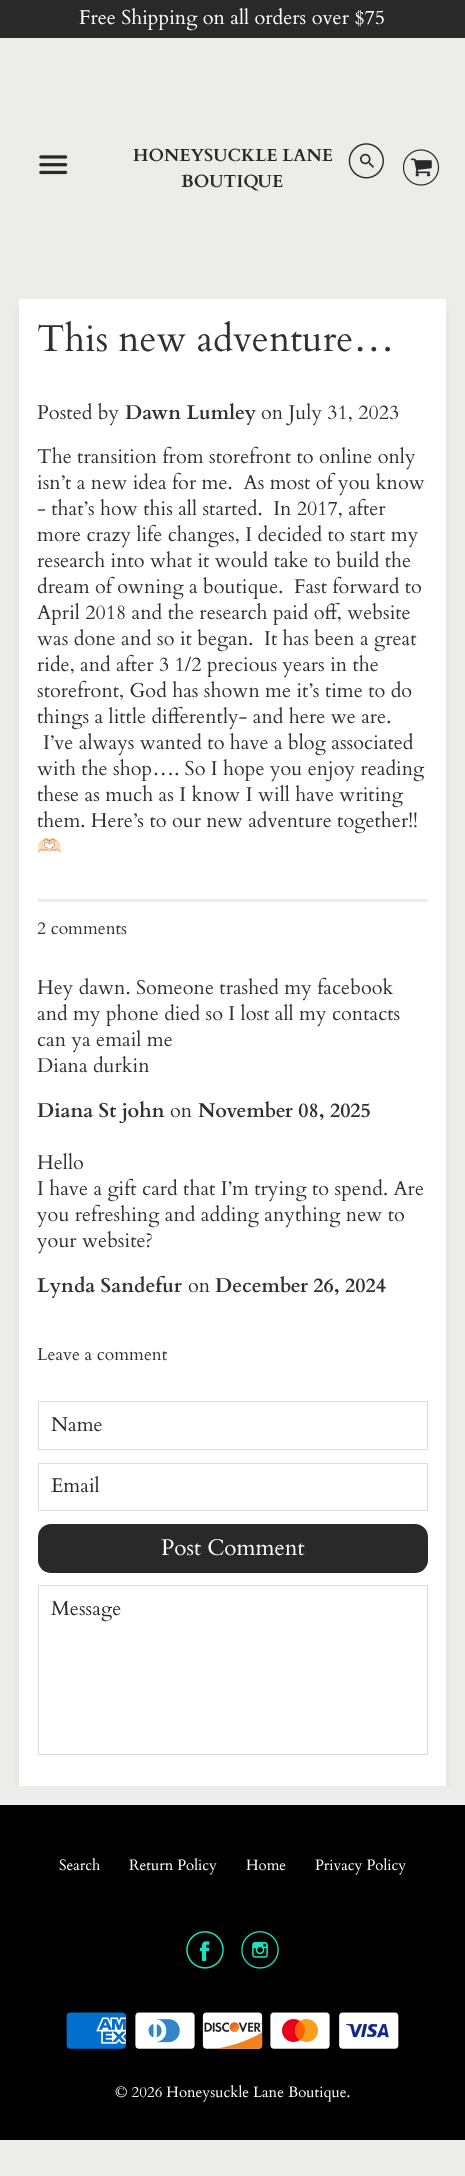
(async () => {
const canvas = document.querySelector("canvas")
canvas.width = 465
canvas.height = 2176
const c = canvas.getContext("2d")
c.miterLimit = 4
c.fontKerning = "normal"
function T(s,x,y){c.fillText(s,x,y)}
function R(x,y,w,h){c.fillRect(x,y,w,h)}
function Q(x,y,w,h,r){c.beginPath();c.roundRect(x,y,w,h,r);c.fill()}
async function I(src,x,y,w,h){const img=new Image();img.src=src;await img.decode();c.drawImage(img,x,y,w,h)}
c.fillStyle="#ececeb"
R(0,0,465,2176)
c.fillStyle="#292929"
R(0,0,465,38)
c.font="20px Cardo"
c.fillStyle="#fff"
T("Free Shipping on all orders over $75",79,24)
await I("1.png",39,155,29,20)
c.font="bold 17.5px Cardo"
c.fillStyle="#292929"
T("HONEYSUCKLE LANE",133,161)
T("BOUTIQUE",181,187)
await I("2.png",348,143,36,36)
await I("3.png",403,149,37,37)
c.fillStyle="#000"
R(0,1805,465,335)
c.save()
c.beginPath()
c.rect(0,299,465,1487)
c.clip()
c.fillStyle="#a3a3a352"
c.filter="blur(4.5px)"
c.beginPath()
c.rect(21,310,423,1483)
c.fill()
c.filter="none"
c.restore()
c.fillStyle="#fff"
R(19,299,427,1487)
c.font="37.5px Cardo"
c.fillStyle="#313131"
T("This new adventure…",37,351)
c.font="20px Cardo"
T("Posted by",37,419)
c.font="bold 20px Cardo"
T("Dawn Lumley",125,419)
c.font="20px Cardo"
T("on July 31, 2023",261,419)
T("The transition from storefront to online only",37,463)
T("isn’t a new idea for me.  As most of you know",37,489)
T("- that’s how this all started.  In 2017, after",37,515)
T("more crazy life changes, I decided to start my",37,541)
T("research into what it would take to build the",37,567)
T("dream of owning a boutique.  Fast forward to",37,593)
T("April 2018 and the research paid off, website",37,619)
T("was done and so it began.  It has been a great",37,645)
T("ride, and after 3 1/2 precious years in the",37,671)
T("storefront, God has shown me it’s time to do",37,697)
T("things a little differently- and here we are.",37,723)
T("I’ve always wanted to have a blog associated",43,749)
T("with the shop…. So I hope you enjoy reading",37,775)
T("these as much as I know I will have writing",37,801)
T("them. Here’s to our new adventure together!!",37,827)
c.font="20px Noto Color Emoji"
T("🫶🏻",37,853)
c.fillStyle="#ececeb"
R(38,899,390,3)
c.font="17.5px Cardo"
c.fillStyle="#313131"
T("2 comments",37,934)
c.font="20px Cardo"
T("Hey dawn. Someone trashed my facebook",37,994)
T("and my phone died so I lost all my contacts",37,1020)
T("can ya email me",37,1046)
T("Diana durkin",37,1072)
c.font="bold 20px Cardo"
T("Diana St john",37,1117)
c.font="20px Cardo"
T("on",170,1117)
c.font="bold 20px Cardo"
T("November 08, 2025",198,1117)
c.font="20px Cardo"
T("Hello",37,1169)
T("I have a gift card that I’m trying to spend. Are",37,1195)
T("you refreshing and adding anything new to",37,1221)
T("your website?",37,1247)
c.font="bold 20px Cardo"
T("Lynda Sandefur",37,1292)
c.font="20px Cardo"
T("on",188,1292)
c.font="bold 20px Cardo"
T("December 26, 2024",215,1292)
c.font="17.5px Cardo"
T("Leave a comment",37,1360)
c.strokeStyle="#dcdcdc"
c.strokeRect(38.5,1401.5,389,48)
c.font="20px Cardo"
c.fillStyle="#292929"
T("Name",51,1431)
c.strokeRect(38.5,1463.5,389,47)
T("Email",51,1492)
Q(38,1524,390,49,13)
c.font="22.5px Cardo"
c.fillStyle="#fff"
T("Post Comment",161,1555)
c.strokeRect(38.5,1585.5,389,169)
c.font="20px Cardo"
c.fillStyle="#292929"
T("Message",51,1615)
c.font="15px Cardo"
c.fillStyle="#fff"
T("Search",59,1870)
T("Return Policy",129,1870)
T("Home",246,1870)
T("Privacy Policy",315,1870)
await I("4.png",186,1931,38,38)
await I("5.png",241,1931,38,38)
await I("6.png",66,2012,60,37)
await I("7.png",135,2012,60,37)
await I("8.png",202,2012,61,37)
await I("9.png",270,2012,60,37)
await I("10.png",339,2012,60,37)
T("© 2026 Honeysuckle Lane Boutique.",115,2097)
})()
